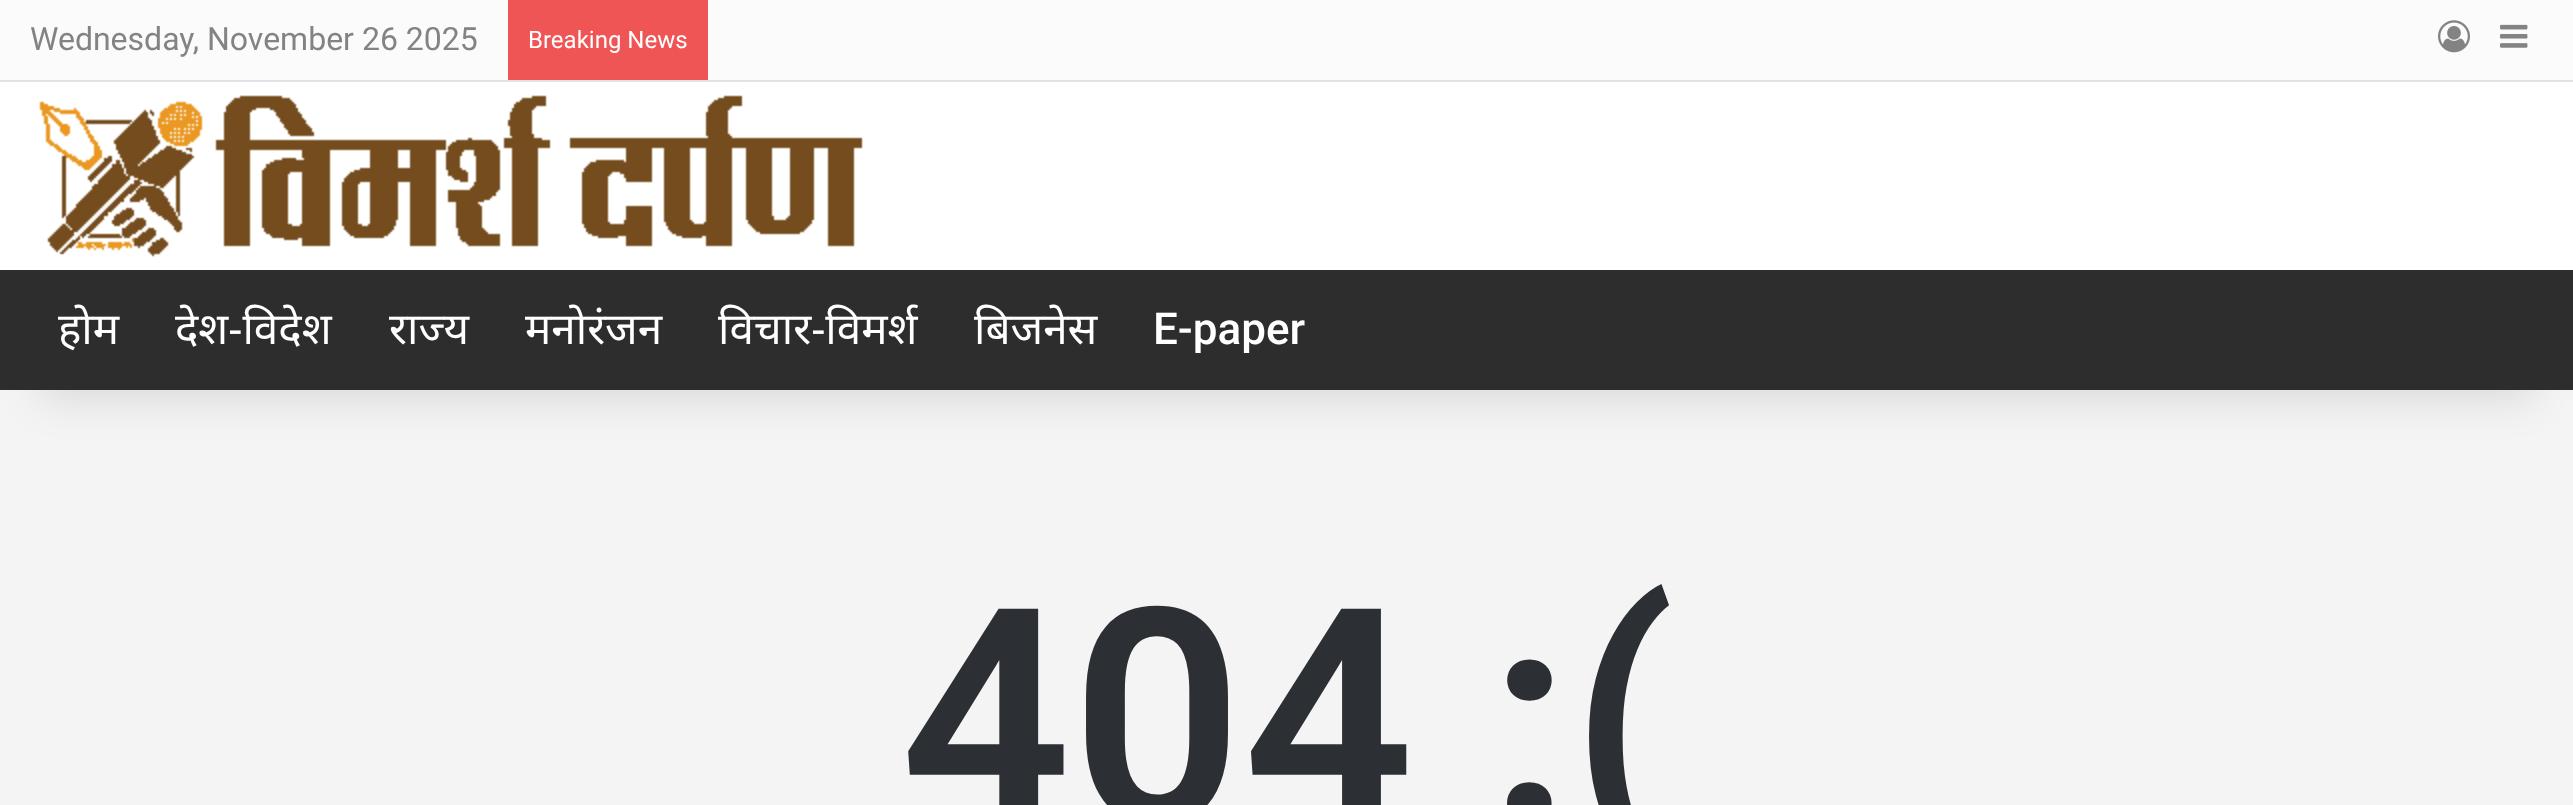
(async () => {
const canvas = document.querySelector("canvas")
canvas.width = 2573
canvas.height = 805
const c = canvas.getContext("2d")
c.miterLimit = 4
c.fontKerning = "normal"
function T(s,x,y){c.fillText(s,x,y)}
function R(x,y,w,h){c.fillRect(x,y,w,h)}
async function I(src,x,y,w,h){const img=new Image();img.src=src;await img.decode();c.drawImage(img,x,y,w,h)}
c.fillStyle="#f4f4f4"
R(0,0,2573,805)
c.fillStyle="#0000001a"
c.filter="blur(20px)"
c.beginPath()
c.rect(40,90,2494,310)
c.fill()
c.filter="none"
c.fillStyle="#fff"
R(0,82,2573,188)
c.fillStyle="#fbfbfb"
R(0,0,2573,80)
c.fillStyle="#e2e2e2"
R(0,80,2573,2)
c.font="32px Roboto"
c.fillStyle="#838383"
T("Wednesday, November 26 2025",30,50)
c.fillStyle="#f05555"
R(508,0,200,80)
c.font="24px Roboto"
c.fillStyle="#fff"
T("Breaking News",528,48)
await I("1.png",2438,20,32,33)
await I("2.png",2500,24,28,24)
await I("3.png",39,95,824,162)
c.fillStyle="#2d2d2d"
R(0,270,2573,120)
c.font="44px Noto Sans"
c.fillStyle="#fff"
T("होम",58,344)
T("देश-विदेश",175,344)
T("राज्य",389,344)
T("मनोरंजन",525,344)
T("विचार-विमर्श",718,344)
T("बिजनेस",974,344)
c.font="500 44px Roboto"
T("E-paper",1153,344)
c.font="600 300px Roboto"
c.fillStyle="#2c2f34"
T("404 :(",900,822)
})()
